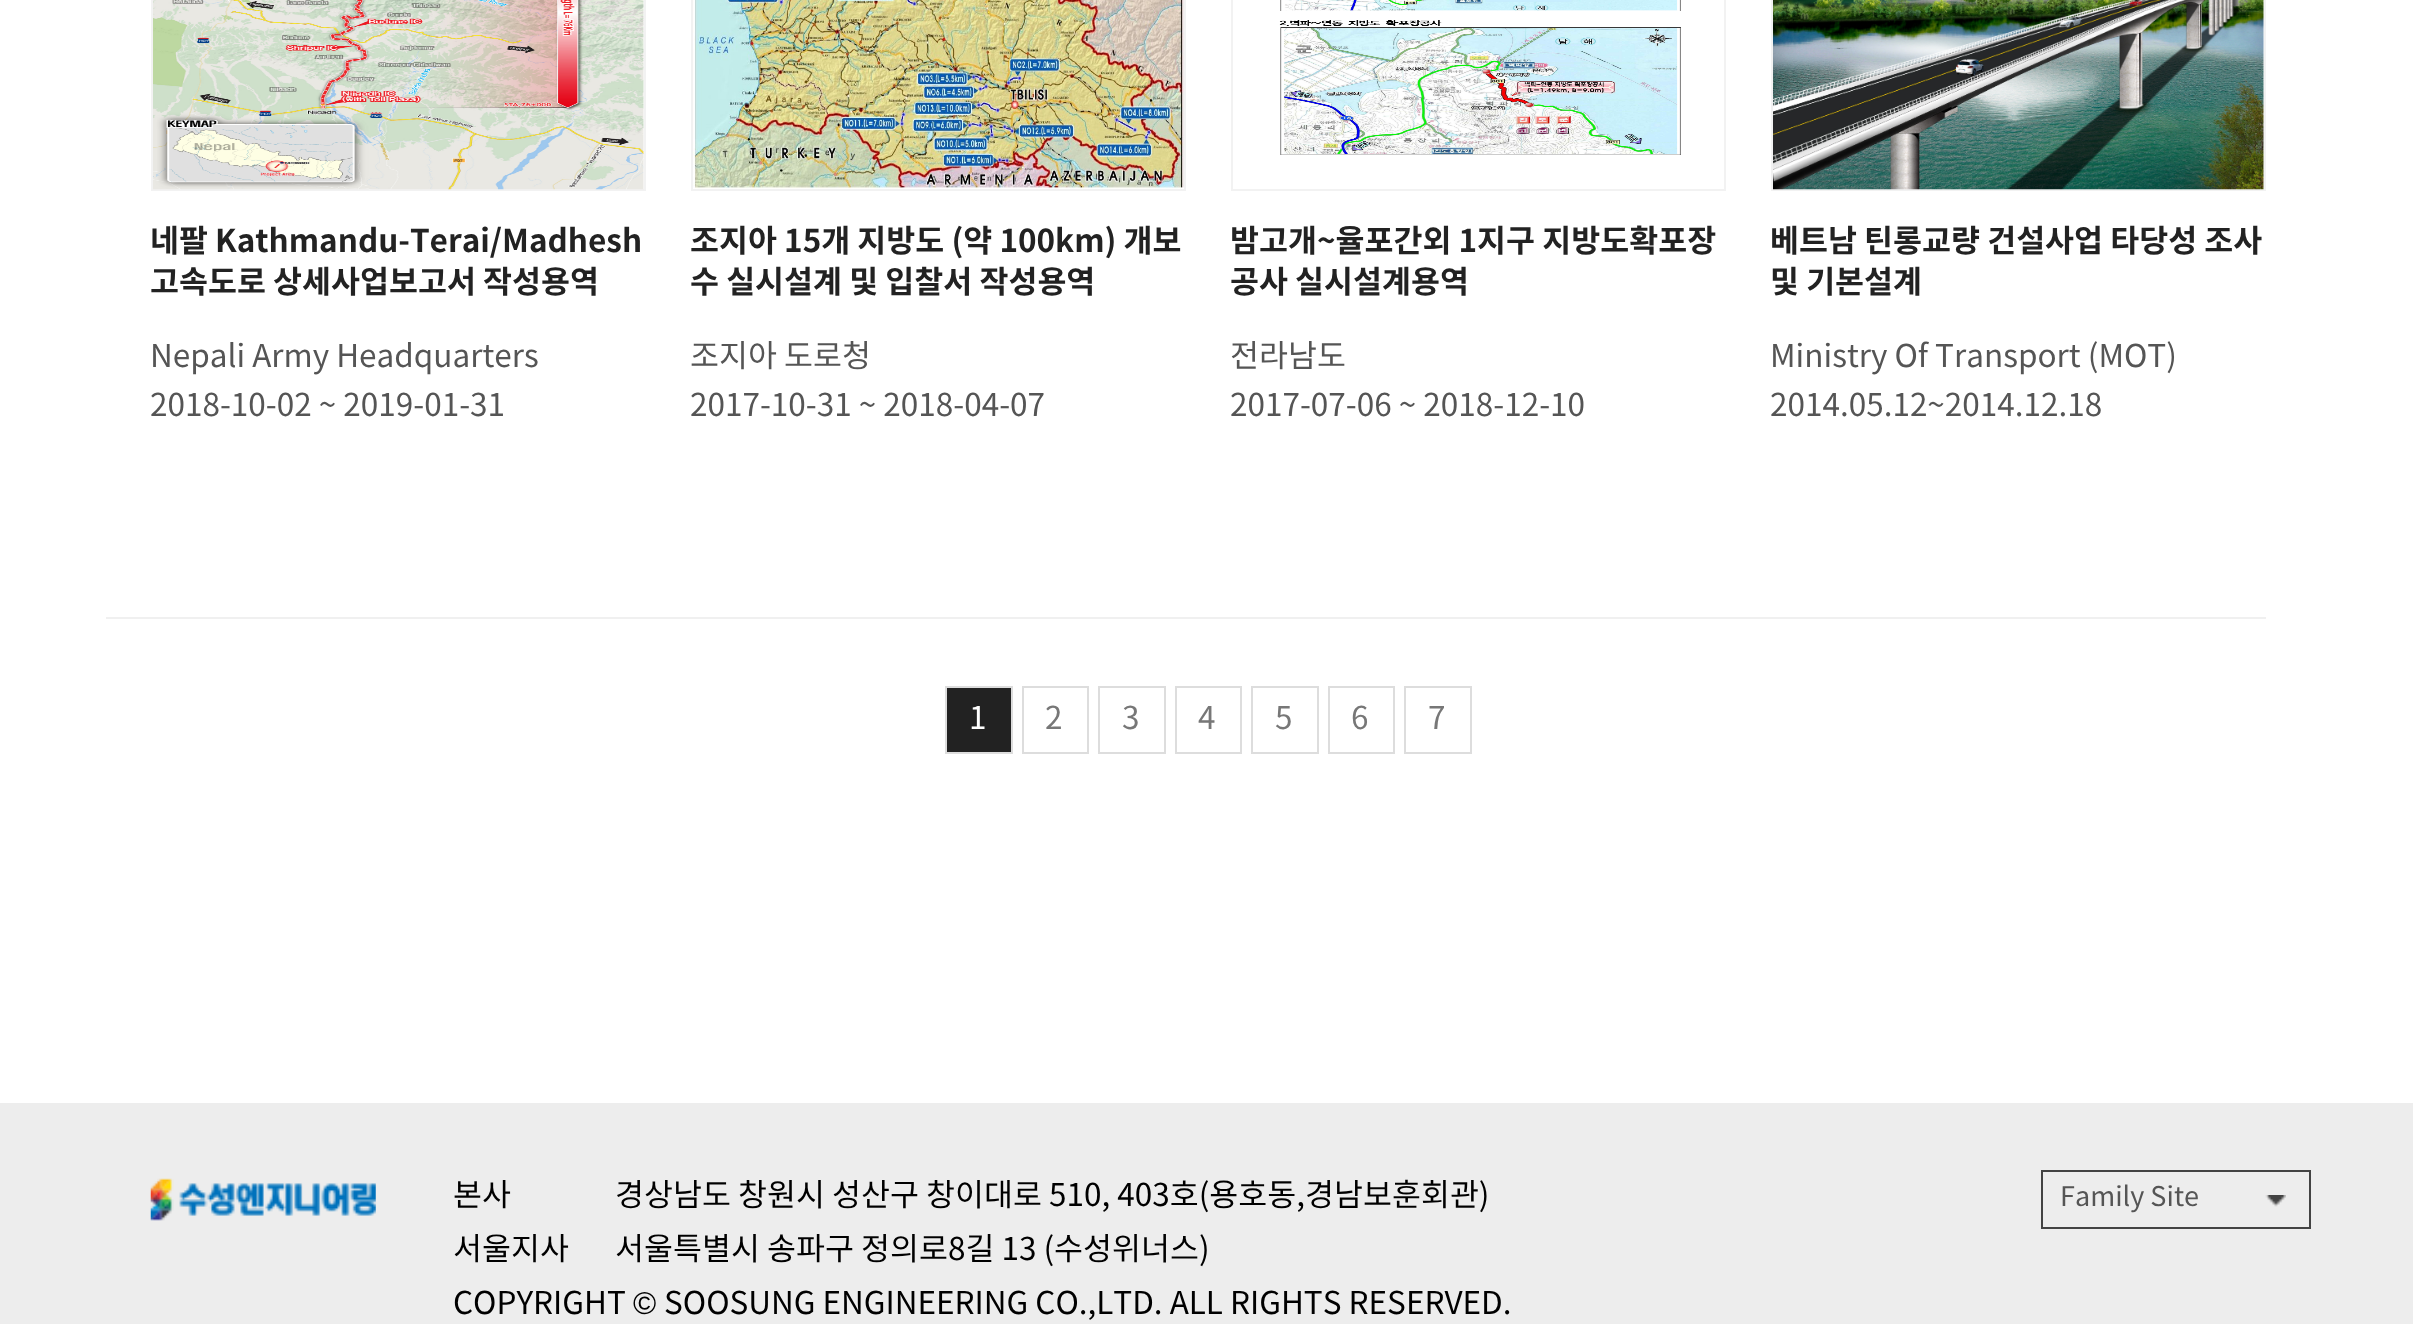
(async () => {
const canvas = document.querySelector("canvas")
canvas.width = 2413
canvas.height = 1324
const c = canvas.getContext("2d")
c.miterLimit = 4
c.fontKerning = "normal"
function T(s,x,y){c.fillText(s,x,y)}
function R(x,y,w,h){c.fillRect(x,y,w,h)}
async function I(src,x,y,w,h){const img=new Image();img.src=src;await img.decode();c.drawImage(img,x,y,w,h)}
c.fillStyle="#fff"
R(0,0,2413,1324)
c.fillStyle="#f0f0f0"
R(106,617,2160,2)
c.strokeStyle="#f2f2f2"
c.lineWidth=2
c.strokeRect(152,-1,493,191)
await I("1.png",153,0,491,190)
c.font="bold 31.5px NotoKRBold"
c.fillStyle="#222"
T("네팔 Kathmandu-Terai/Madhesh",150,252)
T("고속도로 상세사업보고서 작성용역",150,293)
c.font="31.5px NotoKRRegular"
c.fillStyle="#555"
T("Nepali Army Headquarters",150,367)
T("2018-10-02 ~ 2019-01-31",150,416)
c.strokeRect(692,-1,493,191)
await I("2.png",693,0,491,189)
c.font="bold 31.5px NotoKRBold"
c.fillStyle="#222"
T("조지아 15개 지방도 (약 100km) 개보",690,252)
T("수 실시설계 및 입찰서 작성용역",690,293)
c.font="31.5px NotoKRRegular"
c.fillStyle="#555"
T("조지아 도로청",690,367)
T("2017-10-31 ~ 2018-04-07",690,416)
c.strokeRect(1232,-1,493,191)
await I("3.png",1279,0,402,155)
c.font="bold 31.5px NotoKRBold"
c.fillStyle="#222"
T("밤고개~율포간외 1지구 지방도확포장",1230,252)
T("공사 실시설계용역",1230,293)
c.font="31.5px NotoKRRegular"
c.fillStyle="#555"
T("전라남도",1230,367)
T("2017-07-06 ~ 2018-12-10",1230,416)
c.strokeRect(1772,-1,493,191)
await I("4.png",1773,0,491,190)
c.font="bold 31.5px NotoKRBold"
c.fillStyle="#222"
T("베트남 틴롱교량 건설사업 타당성 조사",1770,252)
T("및 기본설계",1770,293)
c.font="31.5px NotoKRRegular"
c.fillStyle="#555"
T("Ministry Of Transport (MOT)",1770,367)
T("2014.05.12~2014.12.18",1770,416)
c.fillStyle="#222"
c.beginPath()
c.rect(946,687,66,66)
c.fill()
c.strokeStyle="#ddd"
c.stroke()
c.fillStyle="#fff"
T("1",969,729)
c.strokeRect(1023,687,65,66)
c.fillStyle="#777"
T("2",1045,729)
c.strokeRect(1099,687,66,66)
T("3",1122,729)
c.strokeRect(1176,687,65,66)
T("4",1198,729)
c.strokeRect(1252,687,66,66)
T("5",1275,729)
c.strokeRect(1329,687,65,66)
T("6",1351,729)
c.strokeRect(1405,687,66,66)
T("7",1428,729)
c.fillStyle="#ededed"
R(0,1103,2413,221)
await I("5.png",150,1178,226,43)
c.fillStyle="#000"
T("본사",453,1206)
T("경상남도 창원시 성산구 창이대로 510, 403호(용호동,경남보훈회관)",615,1206)
T("서울지사",453,1260)
T("서울특별시 송파구 정의로8길 13 (수성위너스)",615,1260)
await I("6.png",2265,1195,21,12)
c.strokeStyle="#434343"
c.strokeRect(2042,1171,268,57)
c.font="27px NotoKRRegular"
c.fillStyle="#555"
T("Family Site",2060,1206)
c.font="31.5px NotoKRRegular"
c.fillStyle="#000"
T("COPYRIGHT",453,1314)
c.font="31.5px Liberation Sans"
T("©",633,1314)
c.font="31.5px NotoKRRegular"
T("SOOSUNG ENGINEERING CO.,LTD. ALL RIGHTS RESERVED.",664,1314)
})()
